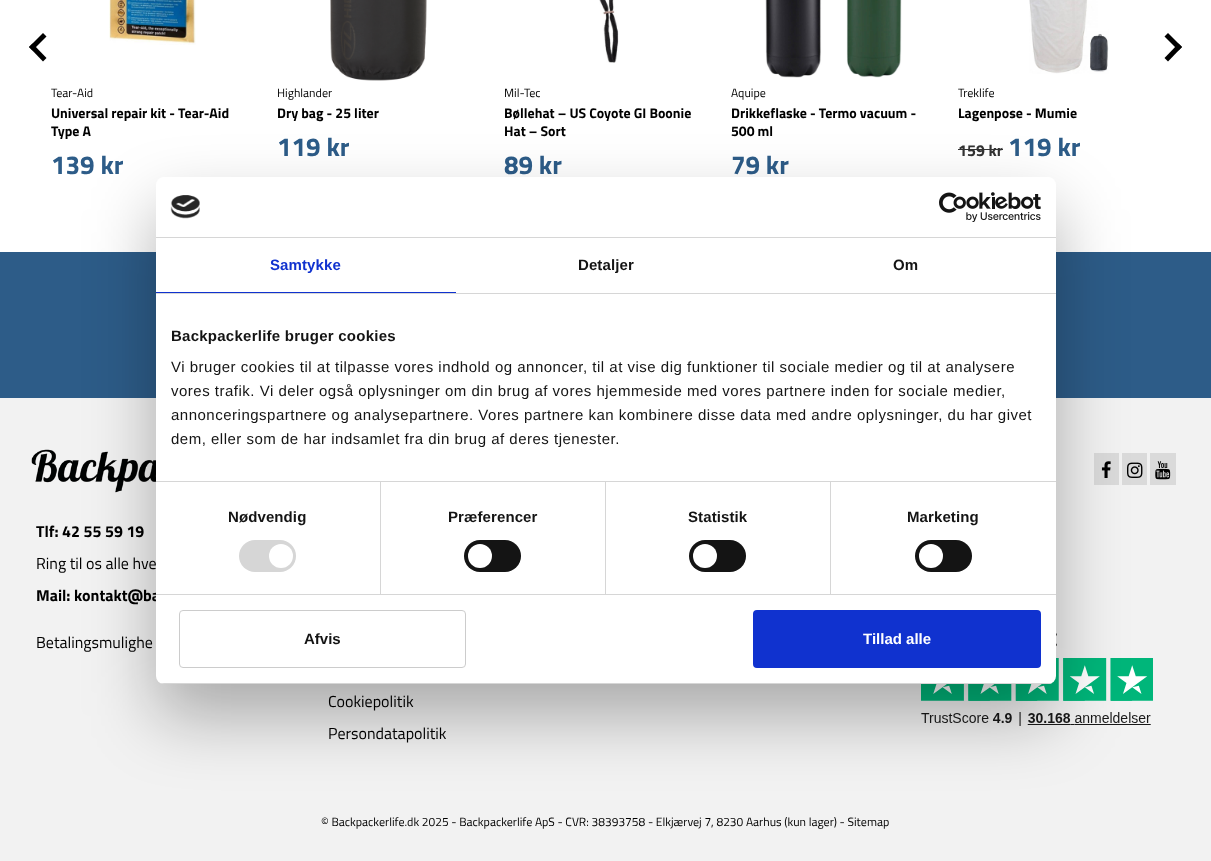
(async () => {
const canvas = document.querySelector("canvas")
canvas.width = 1211
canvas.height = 861
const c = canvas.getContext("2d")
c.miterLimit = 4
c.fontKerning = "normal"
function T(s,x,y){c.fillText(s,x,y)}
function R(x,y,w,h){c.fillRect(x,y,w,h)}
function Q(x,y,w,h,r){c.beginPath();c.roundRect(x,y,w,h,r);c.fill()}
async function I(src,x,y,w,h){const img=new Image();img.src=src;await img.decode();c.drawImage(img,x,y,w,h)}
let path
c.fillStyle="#fff"
R(0,0,1211,861)
c.fillStyle="#000"
path = new Path2D("M46.5 58l-3.5 3.5l-14-14.5l3.5-3.5z")
c.fill(path)
path = new Path2D("M46.5 36.5l-14 14l-3.5-3.5l14-14z")
c.fill(path)
path = new Path2D("M1164.5 36.5l3.5-3.5l14 14l-3.5 3.5z")
c.fill(path)
path = new Path2D("M1164.5 58l14-14.5l3.5 3.5l-14 14.5z")
c.fill(path)
await I("1.png",109,0,87,45)
c.font="12px Titillium Web"
T("Tear-Aid",51,97)
c.font="bold 14px Titillium Web"
T("Universal repair kit - Tear-Aid",51,118)
T("Type A",51,136)
c.font="bold 26px Titillium Web"
c.fillStyle="#2d5c88"
T("139 kr",51,174)
await I("2.png",330,0,97,81)
c.font="12px Titillium Web"
c.fillStyle="#000"
T("Highlander",277,97)
c.font="bold 14px Titillium Web"
T("Dry bag - 25 liter",277,118)
c.font="bold 26px Titillium Web"
c.fillStyle="#2d5c88"
T("119 kr",277,156)
await I("3.png",599,0,20,63)
c.font="12px Titillium Web"
c.fillStyle="#000"
T("Mil-Tec",504,97)
c.font="bold 14px Titillium Web"
T("Bøllehat – US Coyote GI Boonie",504,118)
T("Hat – Sort",504,136)
c.font="bold 26px Titillium Web"
c.fillStyle="#2d5c88"
T("89 kr",504,174)
await I("4.png",765,0,137,78)
c.font="12px Titillium Web"
c.fillStyle="#000"
T("Aquipe",731,97)
c.font="bold 14px Titillium Web"
T("Drikkeflaske - Termo vacuum -",731,118)
T("500 ml",731,136)
c.font="bold 26px Titillium Web"
c.fillStyle="#2d5c88"
T("79 kr",731,174)
await I("5.png",1029,0,80,74)
c.font="12px Titillium Web"
c.fillStyle="#000"
T("Treklife",958,97)
c.font="bold 14px Titillium Web"
T("Lagenpose - Mumie",958,118)
c.font="bold 16px Titillium Web"
c.fillStyle="#333"
T("159 kr",958,156)
R(958,149,45,1)
c.font="bold 26px Titillium Web"
c.fillStyle="#2d5c88"
T("119 kr",1008,156)
R(0,252,1211,146)
c.fillStyle="#f2f2f2"
R(0,398,1211,463)
await I("6.png",31,449,125,44)
c.font="bold 16px Titillium Web"
c.fillStyle="#000"
T("Tlf: 42 55 59 19",36,537)
c.font="16px Titillium Web"
T("Ring til os alle hve",36,569)
c.font="bold 16px Titillium Web"
T("Mail: kontakt@ba",36,601)
c.font="16px Titillium Web"
T("Betalingsmulighe",36,648)
c.fillStyle="#dadada"
R(1094,453,25,32)
await I("7.png",1101,461,10,17)
R(1122,453,25,32)
await I("8.png",1127,462,16,16)
R(1150,453,26,32)
await I("9.png",1155,461,16,19)
await I("10.png",921,633,232,93)
c.fillStyle="#000"
T("Cookiepolitik",328,707)
T("Persondatapolitik",328,739)
c.font="12px Titillium Web"
T("© Backpackerlife.dk 2025 - Backpackerlife ApS - CVR: 38393758 - Elkjærvej 7, 8230 Aarhus (kun lager) - Sitemap",321,826)
c.fillStyle="#0000004d"
c.filter="blur(34px)"
c.beginPath()
c.roundRect(156,209,900,507,8)
c.fill()
c.filter="none"
c.fillStyle="#fff"
Q(156,177,900,507,8)
c.fillStyle="#d6d6d6"
R(156,237,900,1)
await I("11.png",170,195,30,24)
await I("12.png",939,192,102,30)
R(156,293,900,1)
c.fillStyle="#1032cf"
R(156,292,300,1)
c.letterSpacing="0.1px"
c.font="bold 15px Liberation Sans"
T("Samtykke",270,270)
c.fillStyle="#141414"
T("Detaljer",578,270)
T("Om",893,270)
c.fillStyle="#d6d6d6"
R(156,481,900,1)
c.letterSpacing="0.25px"
c.fillStyle="#141414"
T("Backpackerlife bruger cookies",171,341)
c.letterSpacing="0.5px"
c.font="15px Liberation Sans"
T("Vi bruger cookies til at tilpasse vores indhold og annoncer, til at vise dig funktioner til sociale medier og til at analysere",171,372)
T("vores trafik. Vi deler også oplysninger om din brug af vores hjemmeside med vores partnere inden for sociale medier,",171,396)
T("annonceringspartnere og analysepartnere. Vores partnere kan kombinere disse data med andre oplysninger, du har givet",171,420)
T("dem, eller som de har indsamlet fra din brug af deres tjenester.",171,444)
c.fillStyle="#d6d6d6"
R(156,594,900,1)
R(380,482,1,112)
c.letterSpacing="0.1px"
c.font="bold 15px Liberation Sans"
c.fillStyle="#141414"
T("Nødvendig",228,522)
c.fillStyle="#d6d6d6"
Q(239,540,57,32,16)
c.fillStyle="#fff"
c.beginPath()
c.arc(281,556,12,0,7)
c.fill()
c.fillStyle="#d6d6d6"
R(605,482,1,112)
c.fillStyle="#141414"
T("Præferencer",448,522)
Q(464,540,57,32,16)
c.fillStyle="#fff"
c.beginPath()
c.arc(480,556,12,0,7)
c.fill()
c.fillStyle="#d6d6d6"
R(830,482,1,112)
c.fillStyle="#141414"
T("Statistik",688,522)
Q(689,540,57,32,16)
c.fillStyle="#fff"
c.beginPath()
c.arc(705,556,12,0,7)
c.fill()
c.fillStyle="#141414"
T("Marketing",907,522)
Q(915,540,57,32,16)
c.fillStyle="#fff"
c.beginPath()
c.arc(931,556,12,0,7)
c.fill()
c.save()
c.beginPath()
c.roundRect(156,177,900,507,8)
c.clip()
c.fillStyle="#d6d6d6"
R(156,683,900,1)
c.restore()
c.beginPath()
c.roundRect(179.5,610.5,286,57,3.5)
c.strokeStyle="#ccc"
c.stroke()
c.letterSpacing="0px"
c.fillStyle="#141414"
T("Afvis",304,644)
c.fillStyle="#1032cf"
c.beginPath()
c.roundRect(754,611,286,56,3)
c.fill()
c.strokeStyle="#1032cf"
c.lineWidth=2
c.stroke()
c.fillStyle="#fff"
T("Tillad alle",863,644)
})()
